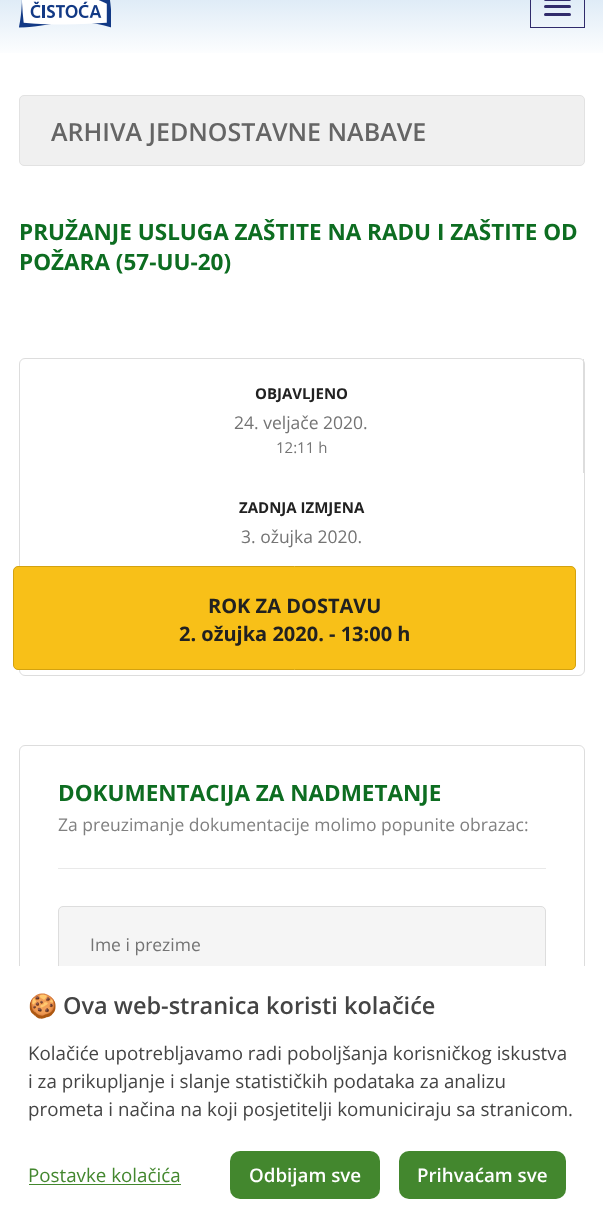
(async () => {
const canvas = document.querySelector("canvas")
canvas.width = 603
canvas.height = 1226
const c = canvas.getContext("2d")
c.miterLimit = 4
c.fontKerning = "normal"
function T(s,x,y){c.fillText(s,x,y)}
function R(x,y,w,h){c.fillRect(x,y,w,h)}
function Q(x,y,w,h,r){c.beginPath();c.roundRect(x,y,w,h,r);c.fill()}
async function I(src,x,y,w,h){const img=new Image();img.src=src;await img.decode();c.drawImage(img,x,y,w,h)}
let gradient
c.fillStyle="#fff"
R(0,0,603,1226)
gradient = c.createLinearGradient(302,-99,302,58)
gradient.addColorStop(0,"#bdd5ed")
gradient.addColorStop(.5,"#d4e5f4")
gradient.addColorStop(1,"#fff")
c.fillStyle = gradient
R(0,0,603,53)
await I("1.png",19,0,92,28)
c.strokeStyle="#302b6b"
c.strokeRect(530.5,-.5,54,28)
c.fillStyle="#302b6b"
Q(544,-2,27,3,1.5)
Q(544,5,27,3,1.5)
Q(544,13,27,3,1.5)
c.fillStyle="#f0f0f0"
c.beginPath()
c.roundRect(19.5,95.5,565,70,4.5)
c.fill()
c.strokeStyle="#e2e2e2"
c.stroke()
c.font="600 25px Open Sans"
c.fillStyle="#656565"
T("ARHIVA JEDNOSTAVNE NABAVE",51,141)
c.font="bold 22.5px Open Sans"
c.fillStyle="#0d6d21"
T("PRUŽANJE USLUGA ZAŠTITE NA RADU I ZAŠTITE OD",19,240)
T("POŽARA (57-UU-20)",19,270)
c.beginPath()
c.roundRect(19.5,358.5,565,317,5.5)
c.strokeStyle="#ddd"
c.stroke()
c.fillStyle="#ddd"
R(583,359,1,114)
c.font="bold 15px Open Sans"
c.fillStyle="#212121"
T("OBJAVLJENO",255,399)
c.font="17.5px Open Sans"
c.fillStyle="#747474"
T("24. veljače 2020.",234,429)
c.font="15px Open Sans"
T("12:11 h",276,453)
c.font="bold 15px Open Sans"
c.fillStyle="#212121"
T("ZADNJA IZMJENA",239,513)
c.font="17.5px Open Sans"
c.fillStyle="#747474"
T("3. ožujka 2020.",241,543)
c.fillStyle="#f8c018"
c.beginPath()
c.roundRect(13.5,566.5,562,103,4.5)
c.fill()
c.strokeStyle="#d3a210"
c.stroke()
c.font="bold 20px Open Sans"
c.fillStyle="#212121"
T("ROK ZA DOSTAVU",208,613)
T("2. ožujka 2020. - 13:00 h",179,641)
c.beginPath()
c.roundRect(19.5,745.5,565,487,5.5)
c.strokeStyle="#ddd"
c.stroke()
c.font="bold 22.5px Open Sans"
c.fillStyle="#0d6d21"
T("DOKUMENTACIJA ZA NADMETANJE",58,801)
c.font="17.5px Open Sans"
c.fillStyle="#808080"
T("Za preuzimanje dokumentacije molimo popunite obrazac:",58,831)
c.fillStyle="#e9e9e9"
R(58,868,488,1)
c.fillStyle="#f5f5f5"
c.beginPath()
c.roundRect(58.5,906.5,487,76,4.5)
c.fill()
c.stroke()
c.fillStyle="#747474"
T("Ime i prezime",90,951)
c.fillStyle="#fff"
R(19,966,566,260)
c.font="bold 23.5px Noto Color Emoji"
c.fillStyle="#444"
T("🍪",28,1014)
c.font="600 23.5px Open Sans"
T("Ova web-stranica koristi kolačiće",63,1014)
c.font="18.75px Open Sans"
T("Kolačiće upotrebljavamo radi poboljšanja korisničkog iskustva",28,1060)
T("i za prikupljanje i slanje statističkih podataka za analizu",28,1088)
T("prometa i načina na koji posjetitelji komuniciraju sa stranicom.",28,1116)
c.fillStyle="#43872e"
T("Postavke kolačića",28,1182)
R(29,1184,152,1)
Q(230,1151,150,48,10)
c.font="600 18.75px Open Sans"
c.fillStyle="#fff"
T("Odbijam sve",249,1182)
c.fillStyle="#43872e"
Q(399,1151,167,48,10)
c.fillStyle="#fff"
T("Prihvaćam sve",417,1182)
})()
